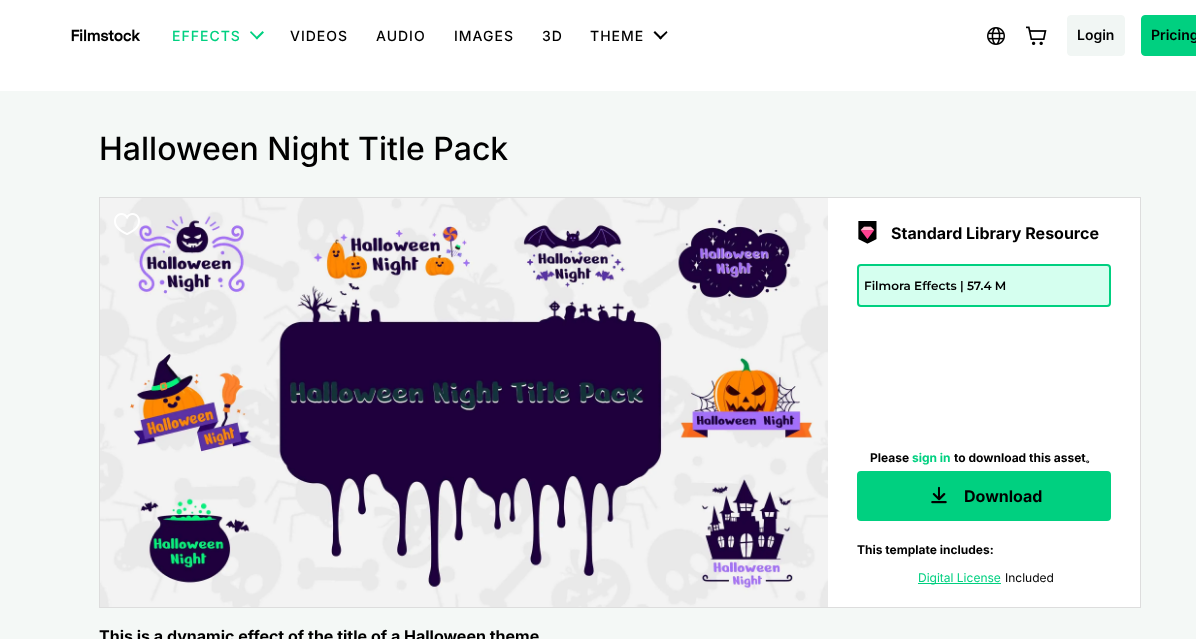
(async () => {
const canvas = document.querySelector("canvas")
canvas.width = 1196
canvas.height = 639
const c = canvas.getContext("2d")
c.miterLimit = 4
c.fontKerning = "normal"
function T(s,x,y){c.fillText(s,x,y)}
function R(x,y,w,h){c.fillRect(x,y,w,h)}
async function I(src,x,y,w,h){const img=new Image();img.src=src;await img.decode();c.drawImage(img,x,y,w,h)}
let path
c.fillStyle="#f4f8f6"
R(0,0,1196,639)
c.fillStyle="#fff"
R(0,0,1196,91)
await I("1.png",71,29,69,13)
c.letterSpacing="1px"
c.font="500 14px Inter"
c.fillStyle="#00d080"
T("EFFECTS",172,41)
path = new Path2D("M264 32.5l-7 7l-1.5-1.5l7-7z")
c.fill(path)
path = new Path2D("M258 38l-1 1.5l-7-7l1-1.5z")
c.fill(path)
c.fillStyle="#000"
T("VIDEOS",290,41)
T("AUDIO",376,41)
T("IMAGES",454,41)
T("3D",542,41)
T("THEME",590,41)
path = new Path2D("M667.5 32.5l-7 7l-1.5-1.5l7.5-7z")
c.fill(path)
path = new Path2D("M662 38l-1.5 1.5l-7-7l1.5-1.5z")
c.fill(path)
await I("2.png",987,27,18,18)
await I("3.png",1026,26,21,19)
c.fillStyle="#f1f6f4"
c.beginPath()
c.roundRect(1067.5,15.5,57,40,3.5)
c.fill()
c.strokeStyle="#f1f6f4"
c.stroke()
c.letterSpacing="0px"
c.font="600 14px Inter"
c.fillStyle="#000"
T("Login",1077,40)
c.fillStyle="#00d080"
c.beginPath()
c.roundRect(1141.5,15.5,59,40,3.5)
c.fill()
c.strokeStyle="#00d080"
c.stroke()
c.fillStyle="#000"
T("Pricing",1151,40)
c.font="500 32px Inter"
T("Halloween Night Title Pack",99,160)
c.fillStyle="#fff"
R(828,198,312,409)
c.strokeStyle="#ddd"
c.strokeRect(99.5,197.5,1041,410)
await I("4.png",100,198,728,409)
await I("5.png",114,213,26,22)
await I("6.png",858,221,19,23)
c.font="bold 16px Inter"
c.fillStyle="#000"
T("Standard Library Resource",891,239)
c.fillStyle="#d5ffef"
c.beginPath()
c.roundRect(858,265,252,41,3)
c.fill()
c.strokeStyle="#00d080"
c.lineWidth=2
c.stroke()
c.font="600 12px Montserrat"
c.fillStyle="#000"
T("Filmora Effects | 57.4 M",864,290)
c.font="bold 12px Inter"
T("Please",870,462)
c.fillStyle="#00d080"
T("sign in",912,462)
c.fillStyle="#000"
T("to download this asset",954,462)
c.font="bold 12px WenQuanYi Zen Hei"
T("。",1085,462)
c.fillStyle="#00d080"
c.beginPath()
c.roundRect(858,472,252,48,3)
c.fill()
c.stroke()
await I("7.png",931,486,16,18)
c.font="bold 16px Inter"
c.fillStyle="#000"
T("Download",964,502)
c.font="bold 12px Inter"
T("This template includes:",857,554)
c.fillStyle="#00d080"
R(918,583,83,1)
c.font="12px Inter"
T("Digital License",918,582)
c.fillStyle="#000"
T("Included",1005,582)
c.font="bold 16px Inter"
T("This is a dynamic effect of the title of a Halloween theme",99,642)
})()
